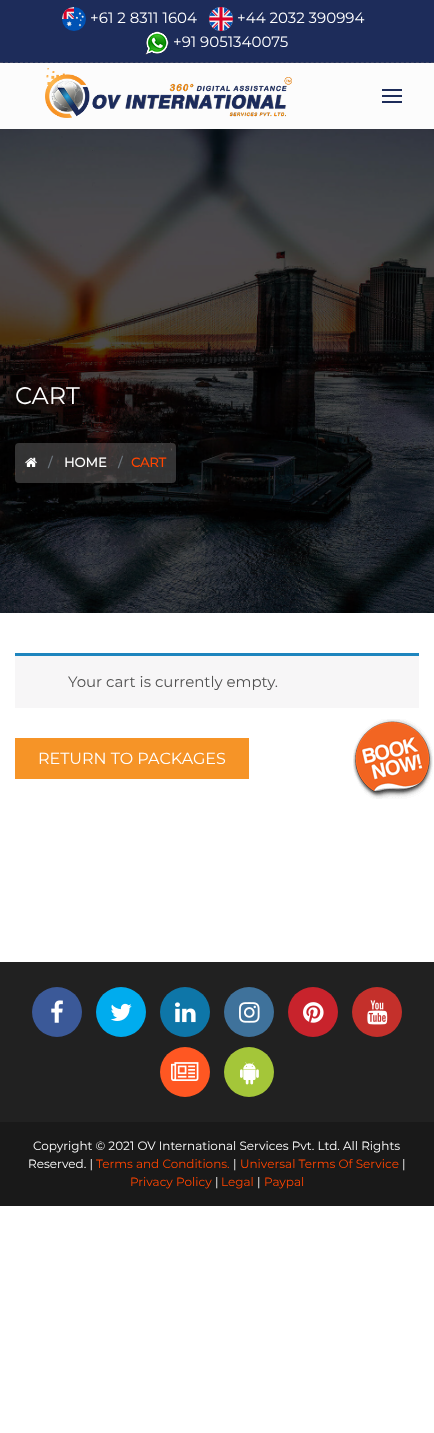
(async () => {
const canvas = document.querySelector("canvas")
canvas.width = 434
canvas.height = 1433
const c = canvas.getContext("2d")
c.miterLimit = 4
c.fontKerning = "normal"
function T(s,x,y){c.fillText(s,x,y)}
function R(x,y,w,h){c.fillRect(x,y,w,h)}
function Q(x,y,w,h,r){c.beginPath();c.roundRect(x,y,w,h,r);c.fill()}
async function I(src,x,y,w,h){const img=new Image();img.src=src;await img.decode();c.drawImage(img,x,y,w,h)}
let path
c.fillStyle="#fff"
R(0,0,434,1433)
c.fillStyle="#1d2c5a"
R(0,0,434,63)
path = new Path2D("M0 62.5h434")
c.strokeStyle="#414764"
c.setLineDash([3,2.01])
c.stroke(path)
await I("1.png",62,7,24,24)
c.font="100 15px Montserrat"
c.fillStyle="#fff"
T("+61 2 8311 1604",90,23)
await I("2.png",209,7,24,24)
T("+44 2032 390994",237,23)
await I("3.png",145,31,24,24)
T("+91 9051340075",173,47)
c.fillStyle="#fcfcfc"
R(0,63,434,66)
await I("4.png",45,68,247,50)
c.fillStyle="#1d2c5a"
R(382,89,20,2)
R(382,95,20,2)
R(382,101,20,2)
await I("5.png",0,129,434,484)
c.font="100 24px Montserrat"
c.fillStyle="#fff"
T("CART",15,404)
c.fillStyle="#ffffff33"
Q(15,443,161,40,4)
await I("6.png",25,457,12,10)
c.font="bold 13px Montserrat"
c.fillStyle="#6c757d"
T("/",48,467)
c.fillStyle="#fff"
T("HOME",64,467)
c.fillStyle="#6c757d"
T("/",118,467)
c.fillStyle="#ff4500"
T("CART",131,467)
c.fillStyle="#f7f6f7"
R(15,656,404,52)
c.fillStyle="#1e85be"
R(15,653,404,3)
c.font="100 15px Montserrat"
c.fillStyle="#515151"
T("Your cart is currently empty.",68,687)
c.fillStyle="#f69427"
R(15,738,234,41)
c.font="100 16px Montserrat"
c.fillStyle="#fff"
T("RETURN TO PACKAGES",38,764)
await I("7.png",353,719,80,80)
c.fillStyle="#212121"
R(0,962,434,160)
c.fillStyle="#3b5998"
c.beginPath()
c.arc(57,1012,25,0,7)
c.fill()
await I("8.png",51,1000,12,23)
c.fillStyle="#00acee"
c.beginPath()
c.arc(121,1012,25,0,7)
c.fill()
await I("9.png",110,1003,22,18)
c.fillStyle="#0e76a8"
c.beginPath()
c.arc(185,1012,25,0,7)
c.fill()
await I("10.png",175,1002,21,21)
c.fillStyle="#3f729b"
c.beginPath()
c.arc(249,1012,25,0,7)
c.fill()
await I("11.png",239,1002,21,21)
c.fillStyle="#c8232c"
c.beginPath()
c.arc(313,1012,25,0,7)
c.fill()
await I("12.png",303,1002,21,21)
c.fillStyle="#c4302b"
c.beginPath()
c.arc(377,1012,25,0,7)
c.fill()
await I("13.png",367,1000,21,25)
c.fillStyle="#ff5722"
c.beginPath()
c.arc(185,1072,25,0,7)
c.fill()
await I("14.png",171,1062,28,19)
c.fillStyle="#a4c639"
c.beginPath()
c.arc(249,1072,25,0,7)
c.fill()
await I("15.png",240,1062,19,23)
c.fillStyle="#191919"
R(0,1122,434,84)
c.font="100 12px Montserrat"
c.fillStyle="#fff"
T("Copyright © 2021 OV International Services Pvt. Ltd. All Rights",33,1150)
T("Reserved. |",28,1168)
c.fillStyle="#ff4500"
T("Terms and Conditions.",96,1168)
c.fillStyle="#fff"
T("|",233,1168)
c.fillStyle="#ff4500"
T("Universal Terms Of Service",240,1168)
c.fillStyle="#fff"
T("|",402,1168)
c.fillStyle="#ff4500"
T("Privacy Policy",130,1186)
c.fillStyle="#fff"
T("|",215,1186)
c.fillStyle="#ff4500"
T("Legal",221,1186)
c.fillStyle="#fff"
T("|",257,1186)
c.fillStyle="#ff4500"
T("Paypal",264,1186)
})()
